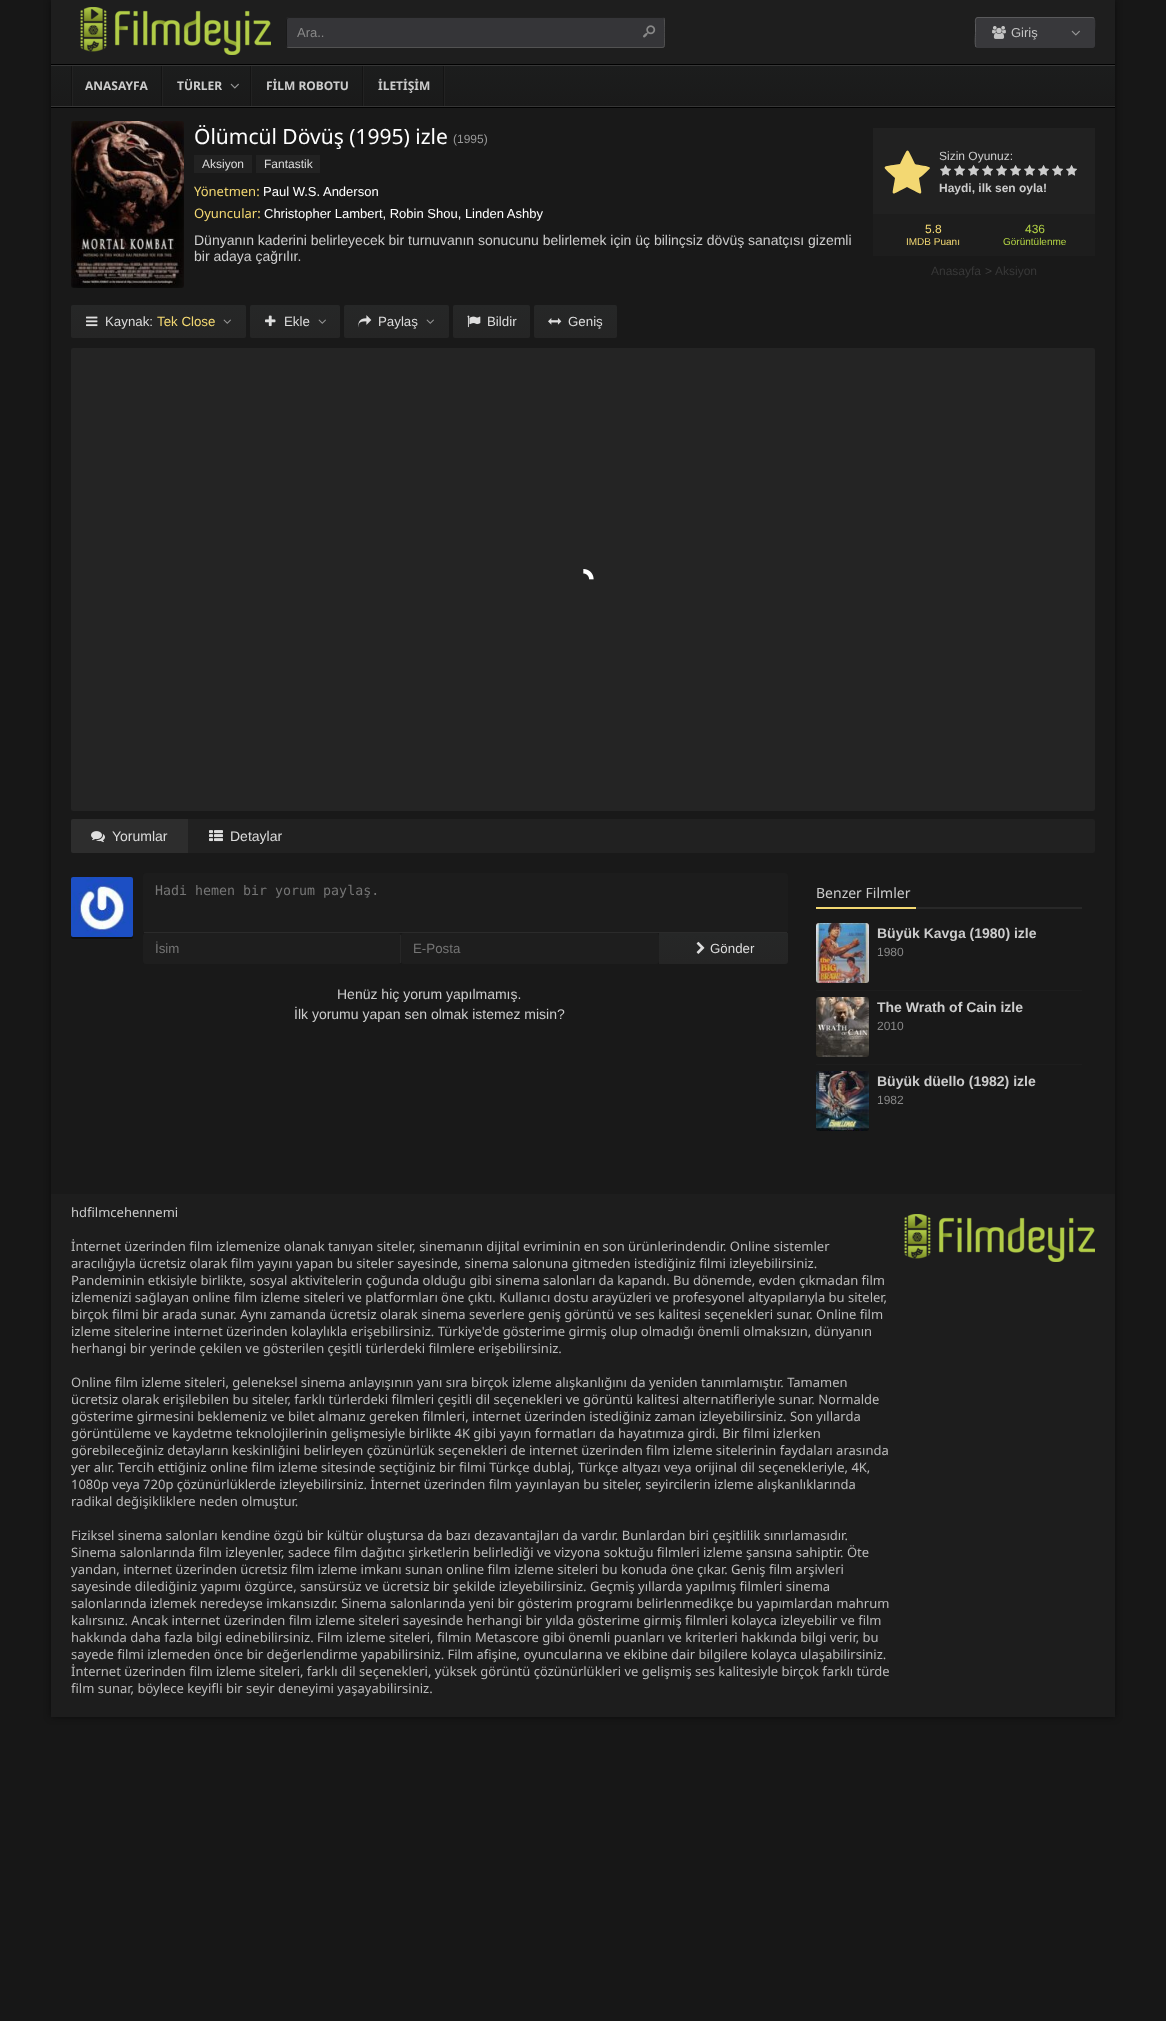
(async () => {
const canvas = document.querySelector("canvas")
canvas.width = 1166
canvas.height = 2021
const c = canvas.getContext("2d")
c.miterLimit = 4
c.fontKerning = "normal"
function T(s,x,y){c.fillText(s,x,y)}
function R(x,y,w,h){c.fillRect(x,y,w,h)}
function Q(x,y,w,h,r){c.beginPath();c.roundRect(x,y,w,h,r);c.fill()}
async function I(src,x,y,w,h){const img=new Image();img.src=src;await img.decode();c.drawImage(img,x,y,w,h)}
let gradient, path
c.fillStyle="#171717"
R(0,0,1166,2021)
c.fillStyle="#00000085"
c.filter="blur(3.5px)"
c.beginPath()
c.rect(51,0,1064,1717)
c.fill()
c.filter="none"
c.fillStyle="#191919"
R(51,108,1064,1086)
c.fillStyle="#1e1e1e"
R(51,0,1064,64)
await I("1.png",80,7,191,48)
c.fillStyle="#353538"
Q(286,17,379,31,3)
path = new Path2D("M287 18l2-.5h373l2 .5")
c.strokeStyle="#202020"
c.stroke(path)
c.save()
c.beginPath()
c.rect(286,17,379,31)
c.clip()
path = new Path2D("M664 18c1 1.5 1 27.5 0 29l-2 .5h-373l-2-.5")
c.strokeStyle="#525252"
c.stroke(path)
c.restore()
path = new Path2D("M287 47c0-.5-.5-1.5-.5-2v-25c0-.5 .5-1.5 .5-2")
c.strokeStyle="#1a1a1a"
c.stroke(path)
c.font="13px Liberation Sans"
c.fillStyle="#888"
T("Ara..",297,37)
await I("2.png",643,25,13,13)
c.fillStyle="#38383b"
Q(975,17,120,31,3)
path = new Path2D("M1094 18c1.5 2 .5 12 .5 14.5v8.5c0 1.5 1 6.5-2.5 6.5h-114l-2-.5")
c.strokeStyle="#38383b"
c.stroke(path)
path = new Path2D("M976 47c-1.5-2-.5-12-.5-14.5v-8.5c0-1.5-1-6.5 2.5-6.5h114l2 .5")
c.strokeStyle="#5a5a5c"
c.stroke(path)
await I("3.png",992,26,14,13)
c.fillStyle="#c4c4c4"
T("Giriş",1011,37)
await I("4.png",1071,30,9,6)
gradient = c.createLinearGradient(583,65,583,107)
gradient.addColorStop(0,"#1c1d1d")
gradient.addColorStop(1,"#1a1a1a")
c.fillStyle = gradient
R(51,66,1064,40)
c.fillStyle="#000"
R(51,64,1064,1)
R(51,107,1064,1)
c.fillStyle="#363636"
R(51,65,1064,1)
R(51,106,1064,1)
c.fillStyle="#222"
R(72,66,1,40)
c.fillStyle="#141414"
R(71,66,1,40)
c.font="bold 12px Noto Sans"
c.fillStyle="#ccc"
T("ANASAYFA",85,90)
c.fillStyle="#222"
R(162,66,1,40)
c.fillStyle="#141414"
R(161,66,1,40)
c.fillStyle="#ccc"
T("TÜRLER",177,90)
c.fillStyle="#222"
R(251,66,1,40)
c.fillStyle="#141414"
R(250,66,1,40)
await I("5.png",230,83,9,6)
c.fillStyle="#ccc"
T("FİLM ROBOTU",266,90)
c.fillStyle="#222"
R(363,66,1,40)
c.fillStyle="#141414"
R(362,66,1,40)
c.fillStyle="#ccc"
T("İLETİŞİM",378,90)
c.fillStyle="#222"
R(444,66,1,40)
c.fillStyle="#141414"
R(443,66,1,40)
await I("6.png",71,121,113,167)
c.font="21px Noto Sans"
c.fillStyle="#fff"
T("Ölümcül Dövüş (1995) izle",194,144)
c.font="12px Liberation Sans"
c.fillStyle="#999"
T("(1995)",453,143)
c.fillStyle="#222"
R(194,155,58,18)
c.fillStyle="#dcdcdc"
T("Aksiyon",202,168)
c.fillStyle="#222"
R(256,155,64,18)
c.fillStyle="#dcdcdc"
T("Fantastik",264,168)
c.font="13px Noto Sans"
c.fillStyle="#f3d872"
T("Yönetmen:",194,196)
c.font="13px Liberation Sans"
c.fillStyle="#fff"
T("Paul W.S. Anderson",263,196)
c.font="13px Noto Sans"
c.fillStyle="#f3d872"
T("Oyuncular:",194,218)
c.font="13px Liberation Sans"
c.fillStyle="#fff"
T("Christopher Lambert, Robin Shou, Linden Ashby",264,218)
c.font="14px Liberation Sans"
c.fillStyle="#ccc"
T("Dünyanın kaderini belirleyecek bir turnuvanın sonucunu belirlemek için üç bilinçsiz dövüş sanatçısı gizemli",194,245)
T("bir adaya çağrılır.",194,261)
c.fillStyle="#212121"
R(873,128,222,86)
c.fillStyle="#f3d872"
path = new Path2D("M930 168c0 1-9 9-11 10c3 20 6 18-12 9c-18 9-15 11-12-9c-14-13-15-11 5-14c9-18 6-18 15 0c2 1 15 2 15 4z")
c.fill(path)
c.font="12px Liberation Sans"
c.fillStyle="#ccc"
T("Sizin Oyunuz:",939,160)
await I("7.png",940,165,12,11)
await I("7.png",954,165,12,11)
await I("7.png",968,165,12,11)
await I("7.png",982,165,12,11)
await I("7.png",996,165,12,11)
await I("7.png",1010,165,12,11)
await I("7.png",1024,165,12,11)
await I("7.png",1038,165,12,11)
await I("7.png",1052,165,12,11)
await I("7.png",1066,165,12,11)
c.font="bold 12px Liberation Sans"
T("Haydi, ilk sen oyla!",939,192)
c.fillStyle="#1d1d1d"
R(873,214,222,42)
c.font="12px Liberation Sans"
c.fillStyle="#f3d872"
T("5.8",925,233)
c.font="10px Liberation Sans"
T("IMDB Puanı",906,245)
c.font="12px Liberation Sans"
c.fillStyle="#b2d244"
T("436",1025,233)
c.font="10px Liberation Sans"
T("Görüntülenme",1003,245)
c.font="12px Liberation Sans"
c.fillStyle="#383838"
T("Anasayfa",931,275)
c.fillStyle="#3e3e3e"
T(">",985,275)
c.fillStyle="#383838"
T("Aksiyon",995,275)
gradient = c.createLinearGradient(159,305,159,338)
gradient.addColorStop(0,"#262727")
gradient.addColorStop(1,"#252525")
c.fillStyle = gradient
Q(71,305,175,33,2)
await I("8.png",86,316,12,11)
c.font="13.3px Liberation Sans"
c.fillStyle="#dcdcdc"
T("Kaynak:",105,326)
c.fillStyle="#f3d872"
T("Tek Close",157,326)
await I("9.png",223,319,8,5)
gradient = c.createLinearGradient(295,305,295,338)
gradient.addColorStop(0,"#262727")
gradient.addColorStop(1,"#252525")
c.fillStyle = gradient
Q(250,305,90,33,2)
await I("10.png",265,315,11,12)
c.fillStyle="#dcdcdc"
T("Ekle",284,326)
await I("9.png",318,319,8,5)
gradient = c.createLinearGradient(397,305,397,338)
gradient.addColorStop(0,"#262727")
gradient.addColorStop(1,"#252525")
c.fillStyle = gradient
Q(344,305,105,33,2)
await I("11.png",358,315,14,13)
c.fillStyle="#dcdcdc"
T("Paylaş",378,326)
await I("9.png",426,319,8,5)
gradient = c.createLinearGradient(492,305,492,338)
gradient.addColorStop(0,"#262727")
gradient.addColorStop(1,"#252525")
c.fillStyle = gradient
Q(453,305,77,33,2)
await I("12.png",467,315,14,13)
c.fillStyle="#dcdcdc"
T("Bildir",487,326)
gradient = c.createLinearGradient(576,305,576,338)
gradient.addColorStop(0,"#262727")
gradient.addColorStop(1,"#252525")
c.fillStyle = gradient
Q(534,305,83,33,2)
await I("13.png",548,318,14,7)
c.fillStyle="#dcdcdc"
T("Geniş",568,326)
c.fillStyle="#242424"
Q(71,348,1024,463,2)
await I("14.png",583,569,11,11)
c.fillStyle="#212121"
Q(71,819,1024,34,2)
c.fillStyle="#2d2d2d"
c.beginPath()
c.roundRect(71,819,117,34,[2,0,0,2])
c.fill()
await I("15.png",91,831,14,12)
c.font="14px Liberation Sans"
c.fillStyle="#dcdcdc"
T("Yorumlar",112,841)
await I("16.png",209,830,14,12)
T("Detaylar",230,841)
c.save()
path = new Path2D("M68 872h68v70h-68zm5 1h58c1 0 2 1 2 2v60c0 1-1 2-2 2h-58c-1 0-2-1-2-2v-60c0-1 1-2 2-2z")
c.clip(path,"evenodd")
c.fillStyle="#00000070"
c.filter="blur(0.5px)"
c.beginPath()
c.roundRect(71,875,62,64,2)
c.fill()
c.filter="none"
c.restore()
await I("17.png",71,877,62,60)
c.fillStyle="#1c1c1c"
c.beginPath()
c.roundRect(143,873,645,60,[3,3,2,2])
c.fill()
c.fillStyle="#2b2b2b"
R(144,932,643,1)
c.font="13.3px DejaVu Sans Mono"
c.fillStyle="#757575"
T("Hadi hemen bir yorum paylaş.",155,895)
c.fillStyle="#1e1e1e"
Q(143,933,258,31,3)
c.fillStyle="#272727"
R(400,935,1,28)
c.font="13.3px Liberation Sans"
c.fillStyle="#757575"
T("İsim",155,953)
c.fillStyle="#1e1e1e"
Q(401,933,258,31,3)
c.fillStyle="#757575"
T("E-Posta",413,953)
gradient = c.createLinearGradient(724,933,724,964)
gradient.addColorStop(0,"#262727")
gradient.addColorStop(1,"#252525")
c.fillStyle = gradient
c.beginPath()
c.roundRect(659,933,129,31,[0,0,3,0])
c.fill()
await I("18.png",696,941,9,13)
c.fillStyle="#dcdcdc"
T("Gönder",710,953)
c.font="14px Liberation Sans"
c.fillStyle="#ccc"
T("Henüz hiç yorum yapılmamış.",337,999)
T("İlk yorumu yapan sen olmak istemez misin?",294,1019)
c.fillStyle="#282828"
R(916,907,166,2)
c.font="14px Noto Sans"
c.fillStyle="#ccc"
T("Benzer Filmler",816,898)
c.fillStyle="#f3d872"
R(816,907,100,2)
c.fillStyle="#1d1d1d"
R(816,990,266,1)
await I("19.png",816,923,53,60)
c.font="bold 14px Liberation Sans"
c.fillStyle="#ccc"
T("Büyük Kavga (1980) izle",877,938)
c.font="12px Liberation Sans"
c.fillStyle="#888"
T("1980",877,956)
c.fillStyle="#1d1d1d"
R(816,1064,266,1)
await I("20.png",816,997,53,60)
c.font="bold 14px Liberation Sans"
c.fillStyle="#ccc"
T("The Wrath of Cain izle",877,1012)
c.font="12px Liberation Sans"
c.fillStyle="#888"
T("2010",877,1030)
await I("21.png",816,1071,53,60)
c.font="bold 14px Liberation Sans"
c.fillStyle="#ccc"
T("Büyük düello (1982) izle",877,1086)
c.font="12px Liberation Sans"
c.fillStyle="#888"
T("1982",877,1104)
c.fillStyle="#1d1d1d"
R(51,1194,1064,523)
c.font="13px Noto Sans"
c.fillStyle="#ccc"
T("hdfilmcehennemi",71,1217)
c.fillStyle="#bbb"
T("İnternet üzerinden film izlemenize olanak tanıyan siteler, sinemanın dijital evriminin en son ürünlerindendir. Online sistemler",71,1251)
T("aracılığıyla ücretsiz olarak film yayını yapan bu siteler sayesinde, sinema salonuna gitmeden istediğiniz filmi izleyebilirsiniz.",71,1268)
T("Pandeminin etkisiyle birlikte, sosyal aktivitelerin çoğunda olduğu gibi sinema salonları da kapandı. Bu dönemde, evden çıkmadan film",71,1285)
T("izlemenizi sağlayan online film izleme siteleri ve platformları öne çıktı. Kullanıcı dostu arayüzleri ve profesyonel altyapılarıyla bu siteler,",71,1302)
T("birçok filmi bir arada sunar. Aynı zamanda ücretsiz olarak sinema severlere geniş görüntü ve ses kalitesi seçenekleri sunar. Online film",71,1319)
T("izleme sitelerine internet üzerinden kolaylıkla erişebilirsiniz. Türkiye'de gösterime girmiş olup olmadığı önemli olmaksızın, dünyanın",71,1336)
T("herhangi bir yerinde çekilen ve gösterilen çeşitli türlerdeki filmlere erişebilirsiniz.",71,1353)
T("Online film izleme siteleri, geleneksel sinema anlayışının yanı sıra birçok izleme alışkanlığını da yeniden tanımlamıştır. Tamamen",71,1387)
T("ücretsiz olarak erişilebilen bu siteler, farklı türlerdeki filmleri çeşitli dil seçenekleri ve görüntü kalitesi alternatifleriyle sunar. Normalde",71,1404)
T("gösterime girmesini beklemeniz ve bilet almanız gereken filmleri, internet üzerinden istediğiniz zaman izleyebilirsiniz. Son yıllarda",71,1421)
T("görüntüleme ve kaydetme teknolojilerinin gelişmesiyle birlikte 4K gibi yayın formatları da hayatımıza girdi. Bir filmi izlerken",71,1438)
T("görebileceğiniz detayların keskinliğini belirleyen çözünürlük seçenekleri de internet üzerinden film izleme sitelerinin faydaları arasında",71,1455)
T("yer alır. Tercih ettiğiniz online film izleme sitesinde seçtiğiniz bir filmi Türkçe dublaj, Türkçe altyazı veya orijinal dil seçenekleriyle, 4K,",71,1472)
T("1080p veya 720p çözünürlüklerde izleyebilirsiniz. İnternet üzerinden film yayınlayan bu siteler, seyircilerin izleme alışkanlıklarında",71,1489)
T("radikal değişikliklere neden olmuştur.",71,1506)
T("Fiziksel sinema salonları kendine özgü bir kültür oluştursa da bazı dezavantajları da vardır. Bunlardan biri çeşitlilik sınırlamasıdır.",71,1540)
T("Sinema salonlarında film izleyenler, sadece film dağıtıcı şirketlerin belirlediği ve vizyona soktuğu filmleri izleme şansına sahiptir. Öte",71,1557)
T("yandan, internet üzerinden ücretsiz film izleme imkanı sunan online film izleme siteleri bu konuda öne çıkar. Geniş film arşivleri",71,1574)
T("sayesinde dilediğiniz yapımı özgürce, sansürsüz ve ücretsiz bir şekilde izleyebilirsiniz. Geçmiş yıllarda yapılmış filmleri sinema",71,1591)
T("salonlarında izlemek neredeyse imkansızdır. Sinema salonlarında yeni bir gösterim programı belirlenmedikçe bu yapımlardan mahrum",71,1608)
T("kalırsınız. Ancak internet üzerinden film izleme siteleri sayesinde herhangi bir yılda gösterime girmiş filmleri kolayca izleyebilir ve film",71,1625)
T("hakkında daha fazla bilgi edinebilirsiniz. Film izleme siteleri, filmin Metascore gibi önemli puanları ve kriterleri hakkında bilgi verir, bu",71,1642)
T("sayede filmi izlemeden önce bir değerlendirme yapabilirsiniz. Film afişine, oyuncularına ve ekibine dair bilgilere kolayca ulaşabilirsiniz.",71,1659)
T("İnternet üzerinden film izleme siteleri, farklı dil seçenekleri, yüksek görüntü çözünürlükleri ve gelişmiş ses kalitesiyle birçok farklı türde",71,1676)
T("film sunar, böylece keyifli bir seyir deneyimi yaşayabilirsiniz.",71,1693)
await I("22.png",904,1214,191,48)
})()
